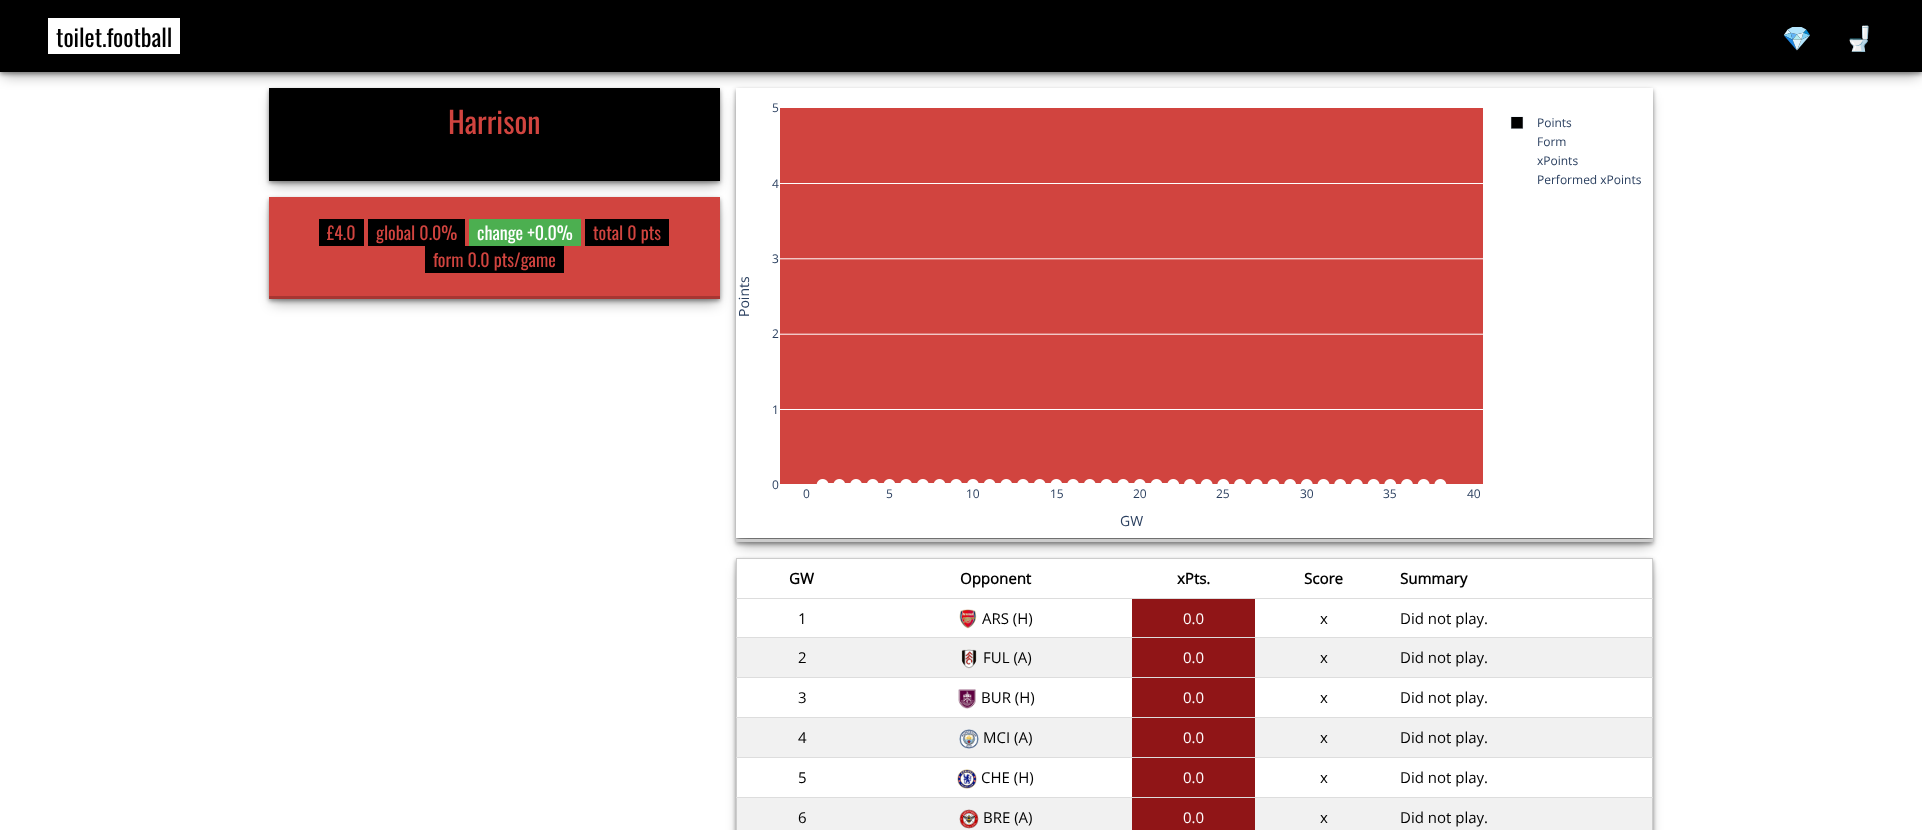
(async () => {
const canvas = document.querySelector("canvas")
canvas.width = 1922
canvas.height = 830
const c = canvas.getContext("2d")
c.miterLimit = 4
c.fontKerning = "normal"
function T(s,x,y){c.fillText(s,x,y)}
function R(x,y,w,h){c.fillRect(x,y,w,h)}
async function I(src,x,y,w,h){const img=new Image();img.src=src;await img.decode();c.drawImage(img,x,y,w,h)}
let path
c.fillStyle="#fff"
R(0,0,1922,830)
c.fillStyle="#0000004d"
c.filter="blur(6.5px)"
c.beginPath()
c.rect(272,98,445,87)
c.fill()
c.filter="none"
c.fillStyle="#00000066"
c.filter="blur(2px)"
c.beginPath()
c.rect(269,90,451,93)
c.fill()
c.filter="none"
c.fillStyle="#000"
R(269,88,451,93)
c.fillStyle="#0000004d"
c.filter="blur(6.5px)"
c.beginPath()
c.rect(3,10,1916,66)
c.fill()
c.filter="none"
c.fillStyle="#00000066"
c.filter="blur(2px)"
c.beginPath()
c.rect(0,2,1922,72)
c.fill()
c.filter="none"
c.fillStyle="#000"
R(0,0,1922,72)
c.fillStyle="#fff"
R(48,18,132,36)
c.font="24px Oswald"
c.fillStyle="#000"
T("toilet.football",56,47)
c.font="24px Noto Color Emoji"
c.fillStyle="#fff"
T("💎",1782,47)
T("🚽",1844,47)
c.font="30px Oswald"
c.fillStyle="#d1443f"
T("Harrison",448,134)
c.fillStyle="#0000004d"
c.filter="blur(6.5px)"
c.beginPath()
c.rect(272,207,445,96)
c.fill()
c.filter="none"
c.fillStyle="#00000066"
c.filter="blur(2px)"
c.beginPath()
c.rect(269,199,451,102)
c.fill()
c.filter="none"
c.fillStyle="#d1443f"
R(269,197,451,99)
c.fillStyle="#a73632"
R(269,296,451,3)
c.fillStyle="#000"
R(319,219,45,27)
c.font="18px Oswald"
c.fillStyle="#d1443f"
T("£4.0",327,240)
c.fillStyle="#000"
R(368,219,97,27)
c.fillStyle="#d1443f"
T("global 0.0%",376,240)
c.fillStyle="#4caf50"
R(469,219,112,27)
c.fillStyle="#fff"
T("change +0.0%",477,240)
c.fillStyle="#000"
R(585,219,84,27)
c.fillStyle="#d1443f"
T("total 0 pts",593,240)
c.fillStyle="#000"
R(425,246,139,27)
c.fillStyle="#d1443f"
T("form 0.0 pts/game",433,267)
c.fillStyle="#0000004d"
c.filter="blur(6.5px)"
c.beginPath()
c.rect(739,98,911,448)
c.fill()
c.filter="none"
c.fillStyle="#00000066"
c.filter="blur(2px)"
c.beginPath()
c.rect(736,90,917,454)
c.fill()
c.filter="none"
c.fillStyle="#ccc"
R(736,539,917,3)
c.fillStyle="#fff"
R(736,88,917,450)
await I("1.png",780,108,703,377)
c.font="12px Open Sans"
c.fillStyle="#2a3f5f"
T("5",772,112)
T("4",772,188)
T("3",772,263)
T("2",772,338)
T("1",772,414)
T("0",772,489)
T("0",803,498)
T("5",886,498)
T("10",966,498)
T("15",1050,498)
T("20",1133,498)
T("25",1216,498)
T("30",1300,498)
T("35",1383,498)
T("40",1467,498)
c.fillStyle="#000"
R(1511,117,12,12)
path = new Path2D("M1523 128.5h-12v-12h12z")
c.strokeStyle="#e5ecf6"
c.lineWidth=0.5
c.stroke(path)
c.fillStyle="#2a3f5f"
T("Points",1537,127)
T("Form",1537,146)
T("xPoints",1537,165)
T("Performed xPoints",1537,184)
c.font="14px Open Sans"
c.save()
c.translate(749,317)
c.rotate(-90 * Math.PI / 180)
c.fillText("Points",0,0)
c.restore()
T("GW",1120,526)
c.fillStyle="#0000004d"
c.filter="blur(6.5px)"
c.beginPath()
c.rect(739,568,911,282)
c.fill()
c.filter="none"
c.fillStyle="#00000066"
c.filter="blur(2px)"
c.beginPath()
c.rect(736,560,917,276)
c.fill()
c.filter="none"
c.fillStyle="#fff"
R(737,559,915,238)
c.fillStyle="#ccc"
R(736,558,917,1)
R(1652,558,1,272)
R(736,558,1,272)
c.fillStyle="#ddd"
R(736,598,917,1)
c.font="bold 15px Open Sans"
c.fillStyle="#000"
T("GW",789,584)
T("Opponent",960,584)
T("xPts.",1177,584)
T("Score",1304,584)
T("Summary",1400,584)
c.fillStyle="#ddd"
R(736,637,917,1)
c.font="15px Open Sans"
c.fillStyle="#000"
T("1",798,624)
await I("2.png",959,609,18,20)
T("ARS (H)",982,624)
c.fillStyle="#901517"
R(1132,599,123,38)
c.fillStyle="#fff"
T("0.0",1183,624)
c.fillStyle="#000"
T("x",1320,624)
T("Did not play.",1400,624)
c.fillStyle="#f1f1f1"
R(737,638,915,39)
c.fillStyle="#ddd"
R(736,677,917,1)
c.fillStyle="#000"
T("2",798,663)
await I("3.png",961,649,16,20)
T("FUL (A)",983,663)
c.fillStyle="#901517"
R(1132,638,123,39)
c.fillStyle="#fff"
T("0.0",1183,663)
c.fillStyle="#000"
T("x",1320,663)
T("Did not play.",1400,663)
c.fillStyle="#ddd"
R(736,717,917,1)
c.fillStyle="#000"
T("3",798,703)
await I("4.png",958,689,18,20)
T("BUR (H)",981,703)
c.fillStyle="#901517"
R(1132,678,123,39)
c.fillStyle="#fff"
T("0.0",1183,703)
c.fillStyle="#000"
T("x",1320,703)
T("Did not play.",1400,703)
c.fillStyle="#f1f1f1"
R(737,718,915,39)
c.fillStyle="#ddd"
R(736,757,917,1)
c.fillStyle="#000"
T("4",798,743)
await I("5.png",959,729,20,20)
T("MCI (A)",983,743)
c.fillStyle="#901517"
R(1132,718,123,39)
c.fillStyle="#fff"
T("0.0",1183,743)
c.fillStyle="#000"
T("x",1320,743)
T("Did not play.",1400,743)
c.fillStyle="#ddd"
R(736,797,917,1)
c.fillStyle="#000"
T("5",798,783)
await I("6.png",957,769,20,20)
T("CHE (H)",981,783)
c.fillStyle="#901517"
R(1132,758,123,39)
c.fillStyle="#fff"
T("0.0",1183,783)
c.fillStyle="#000"
T("x",1320,783)
T("Did not play.",1400,783)
c.fillStyle="#f1f1f1"
R(737,798,915,32)
c.fillStyle="#000"
T("6",798,823)
await I("7.png",959,809,20,20)
T("BRE (A)",983,823)
c.fillStyle="#901517"
R(1132,798,123,32)
c.fillStyle="#fff"
T("0.0",1183,823)
c.fillStyle="#000"
T("x",1320,823)
T("Did not play.",1400,823)
})()
